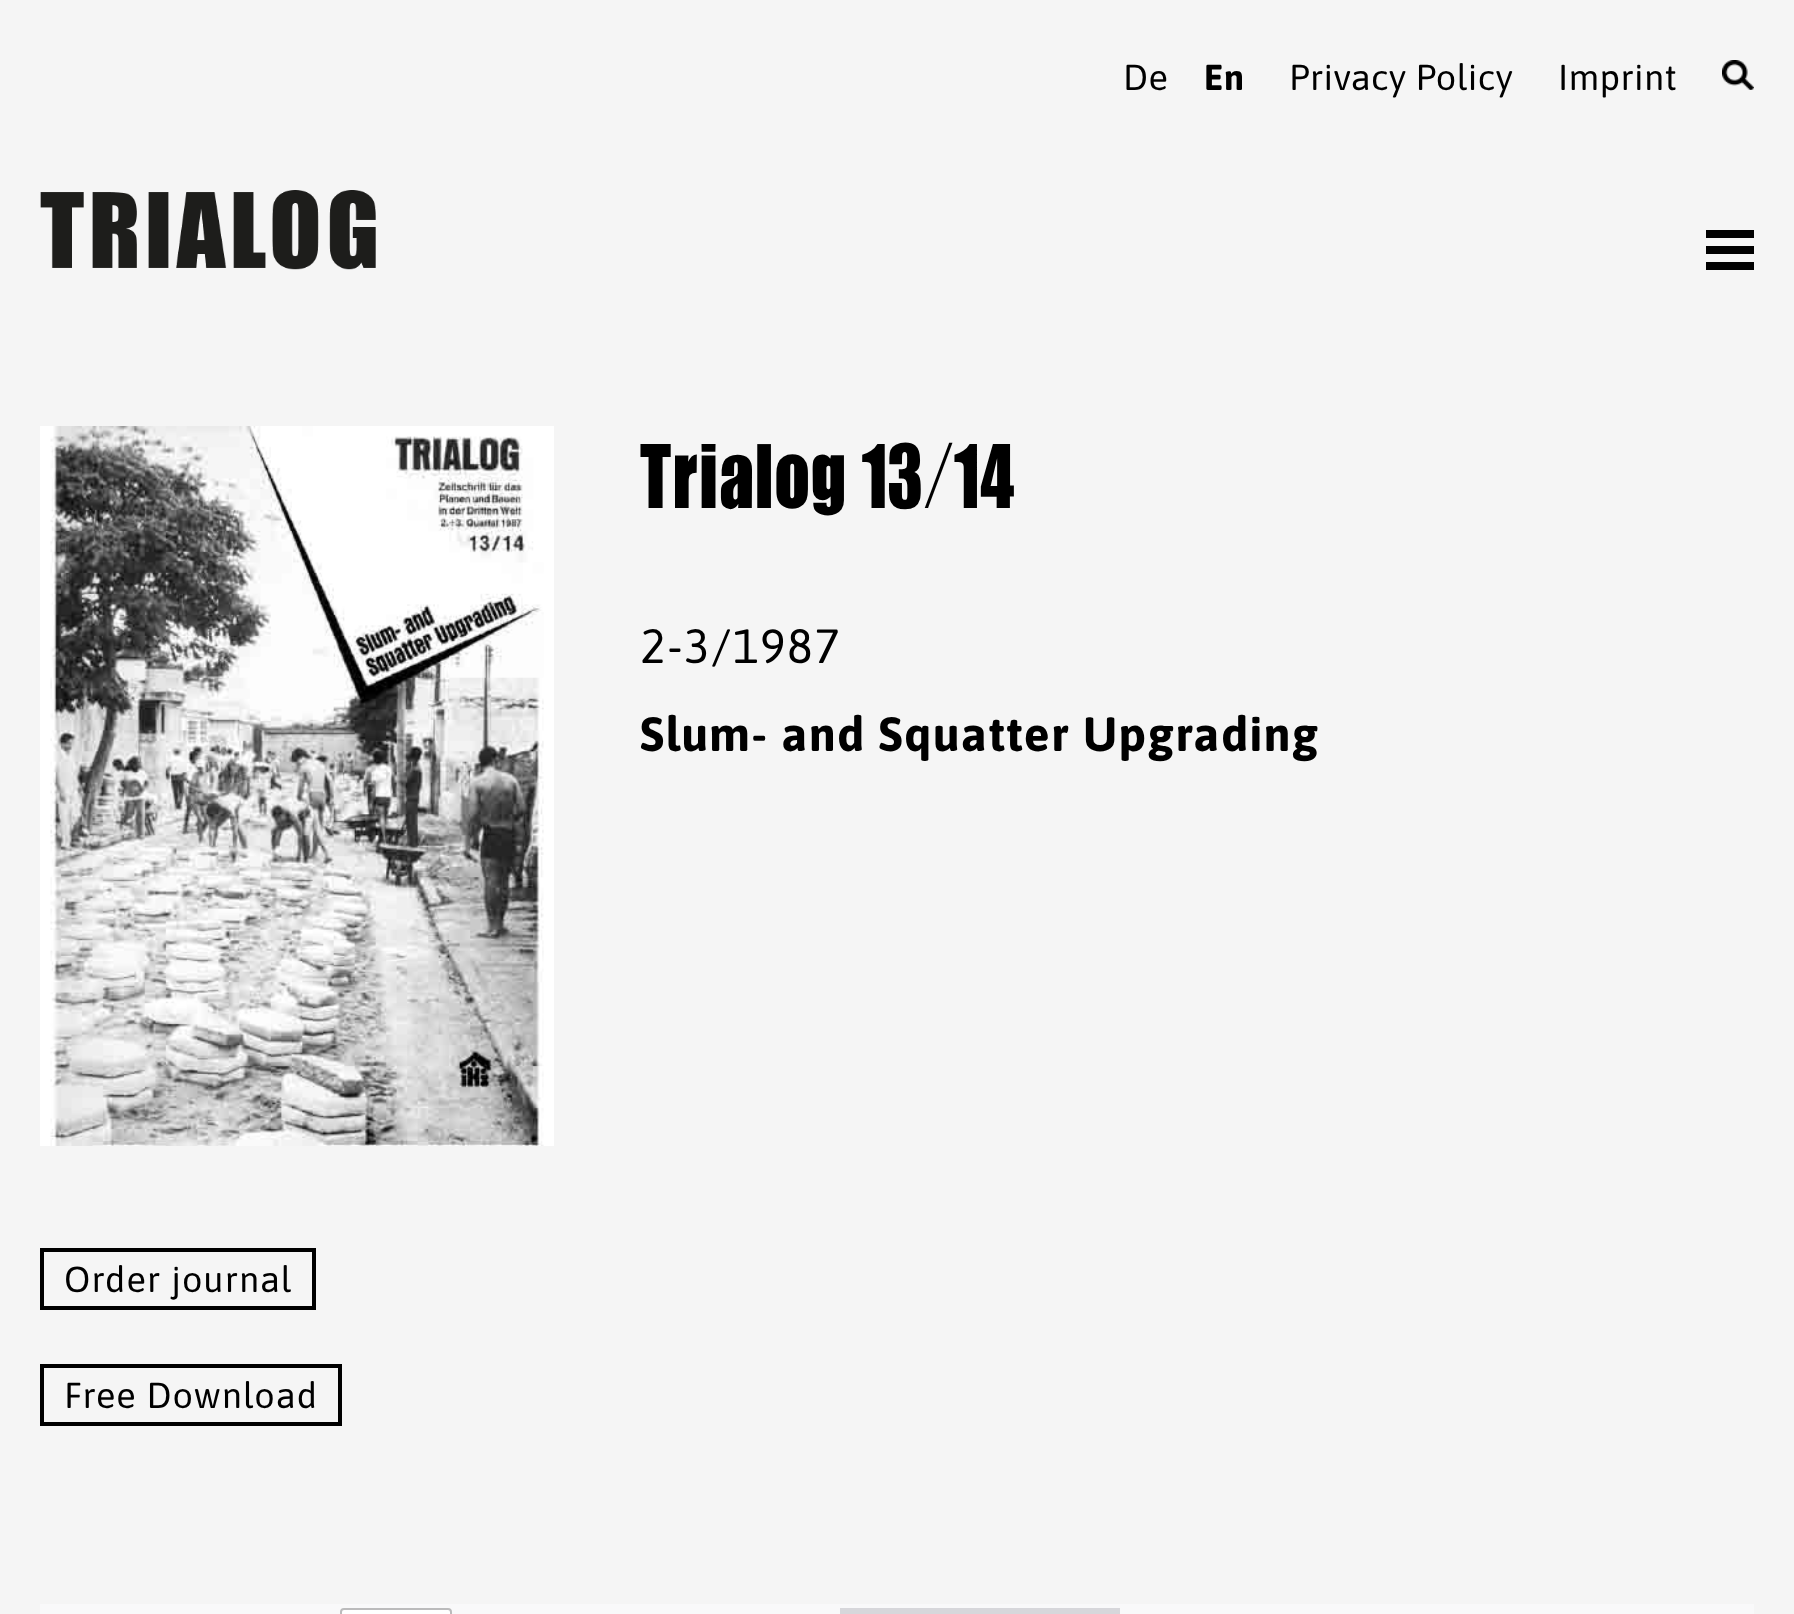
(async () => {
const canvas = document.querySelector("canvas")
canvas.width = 1794
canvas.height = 1614
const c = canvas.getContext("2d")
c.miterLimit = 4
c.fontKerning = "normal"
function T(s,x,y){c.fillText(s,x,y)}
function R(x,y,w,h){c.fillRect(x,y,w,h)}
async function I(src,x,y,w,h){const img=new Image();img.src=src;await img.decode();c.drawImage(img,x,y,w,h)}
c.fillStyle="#f5f5f5"
R(0,0,1794,1614)
c.letterSpacing="0.4px"
c.font="36px Asap"
c.fillStyle="#000"
T("De",1123,90)
c.font="bold 36px Asap"
T("En",1204,90)
c.font="36px Asap"
T("Privacy Policy",1289,90)
T("Imprint",1558,90)
await I("1.png",1722,60,32,30)
await I("2.png",40,190,336,80)
R(1706,230,48,8)
R(1706,246,48,8)
R(1706,262,48,8)
c.letterSpacing="1.45px"
c.font="96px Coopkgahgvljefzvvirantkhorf"
T("Trialog 13/14",640,508)
c.font="48px Asap"
T("2-3/1987",640,663)
c.font="bold 48px Asap"
T("Slum- and Squatter Upgrading",640,751)
await I("3.png",40,426,514,720)
c.strokeStyle="#000"
c.lineWidth=4
c.strokeRect(42,1250,272,58)
c.letterSpacing="1.1px"
c.font="36px Asap"
T("Order journal",64,1292)
c.strokeRect(42,1366,298,58)
T("Free Download",64,1408)
await I("4.png",40,1604,1714,10)
})()
